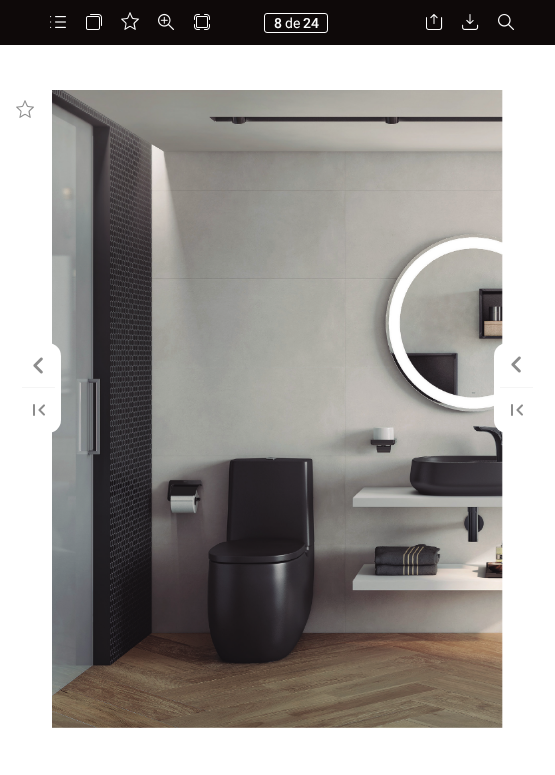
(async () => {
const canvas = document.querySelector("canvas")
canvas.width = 555
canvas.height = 775
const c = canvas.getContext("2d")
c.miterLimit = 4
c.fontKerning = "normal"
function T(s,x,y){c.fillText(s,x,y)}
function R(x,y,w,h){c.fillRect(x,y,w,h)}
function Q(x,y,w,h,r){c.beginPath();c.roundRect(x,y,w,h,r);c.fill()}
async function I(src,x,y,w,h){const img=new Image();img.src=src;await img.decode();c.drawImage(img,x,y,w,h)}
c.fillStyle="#fff"
R(0,0,555,775)
c.fillStyle="#0e0909"
R(0,0,555,45)
await I("1.png",50,16,16,12)
await I("2.png",86,14,16,16)
await I("3.png",121,12,19,18)
await I("4.png",158,13,16,17)
await I("5.png",194,14,16,16)
c.beginPath()
c.roundRect(264.5,13.5,63,19,2.5)
c.strokeStyle="#fff"
c.stroke()
c.font="500 14px Roboto"
c.fillStyle="#fff"
T("8",274,28)
c.font="14px Roboto"
T("de",285,28)
c.font="500 14px Roboto"
T("24",303,28)
await I("6.png",426,14,17,16)
await I("7.png",462,14,17,16)
await I("8.png",498,14,16,16)
await I("9.png",16,100,18,18)
await I("10.png",52,90,451,638)
Q(16,343,45,90,13)
await I("11.png",33,357,10,17)
c.fillStyle="#f5f5f5"
R(22,387,33,1)
await I("12.png",33,404,12,12)
c.fillStyle="#fff"
Q(494,343,45,90,13)
await I("11.png",511,356,10,17)
c.fillStyle="#f5f5f5"
R(500,387,33,1)
await I("12.png",511,404,12,12)
})()
